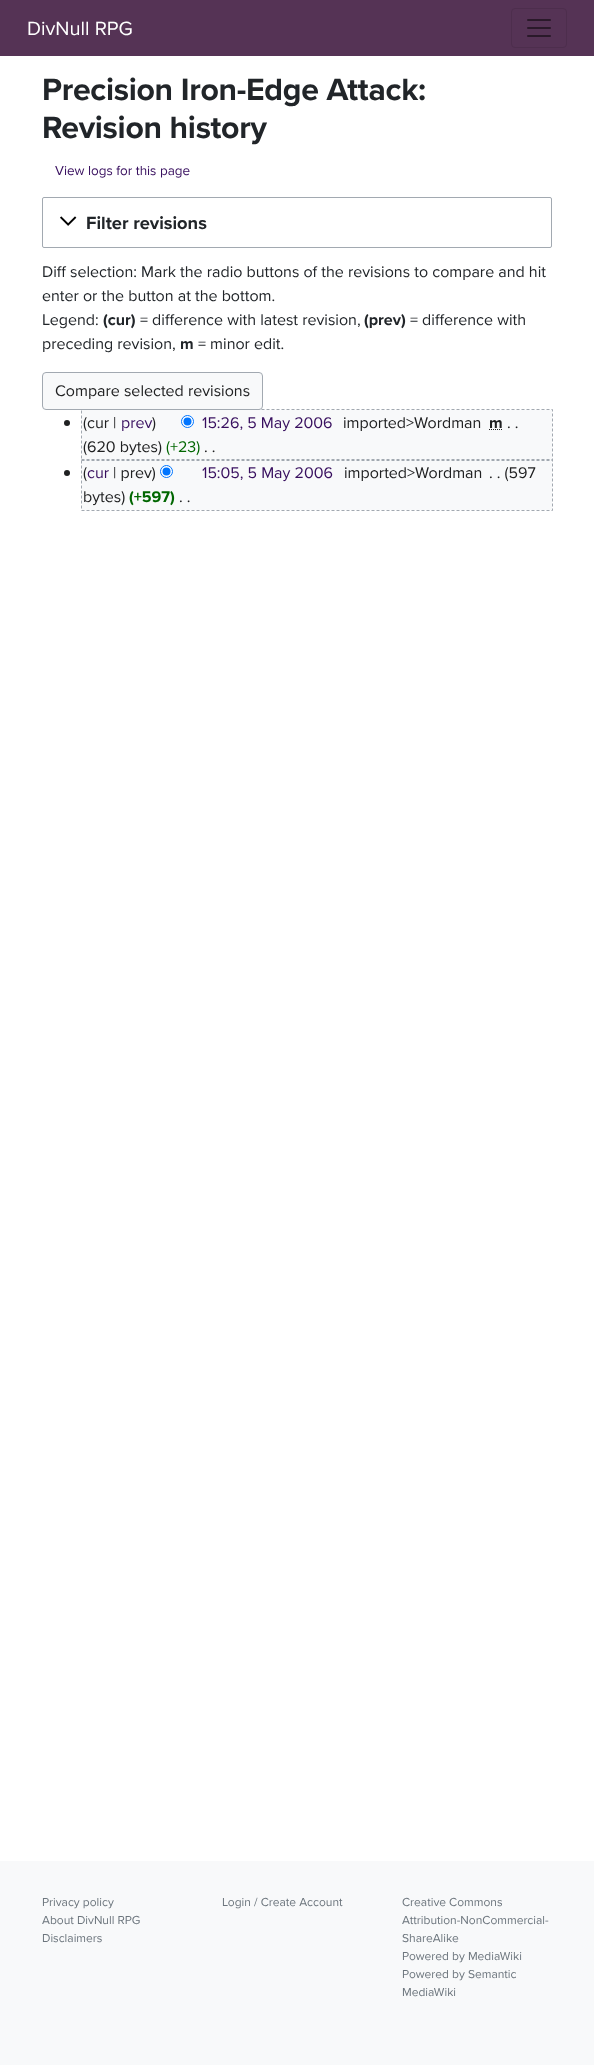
(async () => {
const canvas = document.querySelector("canvas")
canvas.width = 594
canvas.height = 2065
const c = canvas.getContext("2d")
c.miterLimit = 4
c.fontKerning = "normal"
function T(s,x,y){c.fillText(s,x,y)}
function R(x,y,w,h){c.fillRect(x,y,w,h)}
async function I(src,x,y,w,h){const img=new Image();img.src=src;await img.decode();c.drawImage(img,x,y,w,h)}
let path
c.fillStyle="#fff"
R(0,0,594,2065)
c.fillStyle="#535"
R(0,0,594,56)
c.font="20px Proxima Nova"
c.fillStyle="#fff"
T("DivNull RPG",27,35)
c.beginPath()
c.roundRect(511.5,8.5,55,39,3.5)
c.strokeStyle="#4d2e4d"
c.stroke()
await I("1.png",527,19,24,18)
c.letterSpacing="-0.3px"
c.font="bold 32px Proxima Nova"
c.fillStyle="#212529"
T("Precision Iron-Edge Attack:",42,100)
T("Revision history",42,138)
c.letterSpacing="0px"
c.font="13.5px Proxima Nova"
c.fillStyle="#370e5e"
T("View logs for this page",55,175)
c.beginPath()
c.roundRect(42.5,197.5,509,50,1.5)
c.strokeStyle="#a2a9b1"
c.stroke()
await I("2.png",60,216,17,10)
c.font="bold 18.25px Proxima Nova"
c.fillStyle="#212529"
T("Filter revisions",86,229)
c.font="16px Proxima Nova"
T("Diff selection: Mark the radio buttons of the revisions to compare and hit",42,277)
T("enter or the button at the bottom.",42,301)
T("Legend:",42,325)
c.font="bold 16px Proxima Nova"
T("(cur)",103,325)
c.font="16px Proxima Nova"
T("= difference with latest revision,",140,325)
c.font="bold 16px Proxima Nova"
T("(prev)",364,325)
c.font="16px Proxima Nova"
T("= difference with",410,325)
T("preceding revision,",42,349)
c.font="bold 16px Proxima Nova"
T("m",180,349)
c.font="16px Proxima Nova"
T("= minor edit.",198,349)
c.fillStyle="#f8f9fa"
R(82,410,470,100)
c.fillStyle="#202122"
T("(cur |",83,428)
c.fillStyle="#370e5e"
T("prev",121,428)
c.fillStyle="#202122"
T(")",152,428)
c.fillStyle="#fff"
c.beginPath()
c.arc(187.5,421.5,6,0,7)
c.fill()
c.strokeStyle="#0075ff"
c.stroke()
c.fillStyle="#0075ff"
c.beginPath()
c.arc(187.5,421.5,4,0,7)
c.fill()
c.fillStyle="#370e5e"
T("15:26, 5 May 2006",202,428)
c.fillStyle="#202122"
T("imported>Wordman",343,428)
c.font="bold 16px Proxima Nova"
T("m",489,428)
path = new Path2D("M489 429.5h13.5")
c.strokeStyle="#202122"
c.setLineDash([1,1])
c.stroke(path)
c.font="16px Proxima Nova"
T(". .",507,428)
T("(620 bytes)",83,452)
c.fillStyle="#060"
T("(+23)",166,452)
c.fillStyle="#202122"
T(". .",204,452)
path = new Path2D("M81.5 409.5h471v51h-471z")
c.strokeStyle="#a2a9b1"
c.setLineDash([3,2])
c.stroke(path)
c.fillStyle="#f8f9fa"
c.beginPath()
c.roundRect(42.5,372.5,220,37,3.5)
c.fill()
c.setLineDash([])
c.stroke()
c.fillStyle="#202122"
T("Compare selected revisions",55,396)
c.beginPath()
c.arc(67,423,3,0,7)
c.fill()
T("(",83,478)
c.fillStyle="#370e5e"
T("cur",87,478)
c.fillStyle="#202122"
T("| prev)",113,478)
c.fillStyle="#fff"
c.beginPath()
c.arc(166.5,471.5,6,0,7)
c.fill()
c.strokeStyle="#0075ff"
c.stroke()
c.fillStyle="#0075ff"
c.beginPath()
c.arc(166.5,471.5,4,0,7)
c.fill()
c.fillStyle="#370e5e"
T("15:05, 5 May 2006",202,478)
c.fillStyle="#202122"
T("imported>Wordman",344,478)
T(". . (597",489,478)
T("bytes)",83,502)
c.font="bold 16px Proxima Nova"
c.fillStyle="#060"
T("(+597)",129,502)
c.font="16px Proxima Nova"
c.fillStyle="#202122"
T(". .",179,502)
path = new Path2D("M81.5 459.5h471v51h-471z")
c.strokeStyle="#a2a9b1"
c.setLineDash([3,2])
c.stroke(path)
c.beginPath()
c.arc(67,473,3,0,7)
c.fill()
c.fillStyle="#f8f9fa"
R(0,1861,594,204)
c.font="12px Proxima Nova"
c.fillStyle="#6c757d"
T("Privacy policy",42,1906)
T("About DivNull RPG",42,1924)
T("Disclaimers",42,1942)
T("Login / Create Account",222,1906)
T("Creative Commons",402,1906)
T("Attribution-NonCommercial-",402,1924)
T("ShareAlike",402,1942)
T("Powered by MediaWiki",402,1960)
T("Powered by Semantic",402,1978)
T("MediaWiki",402,1996)
})()
